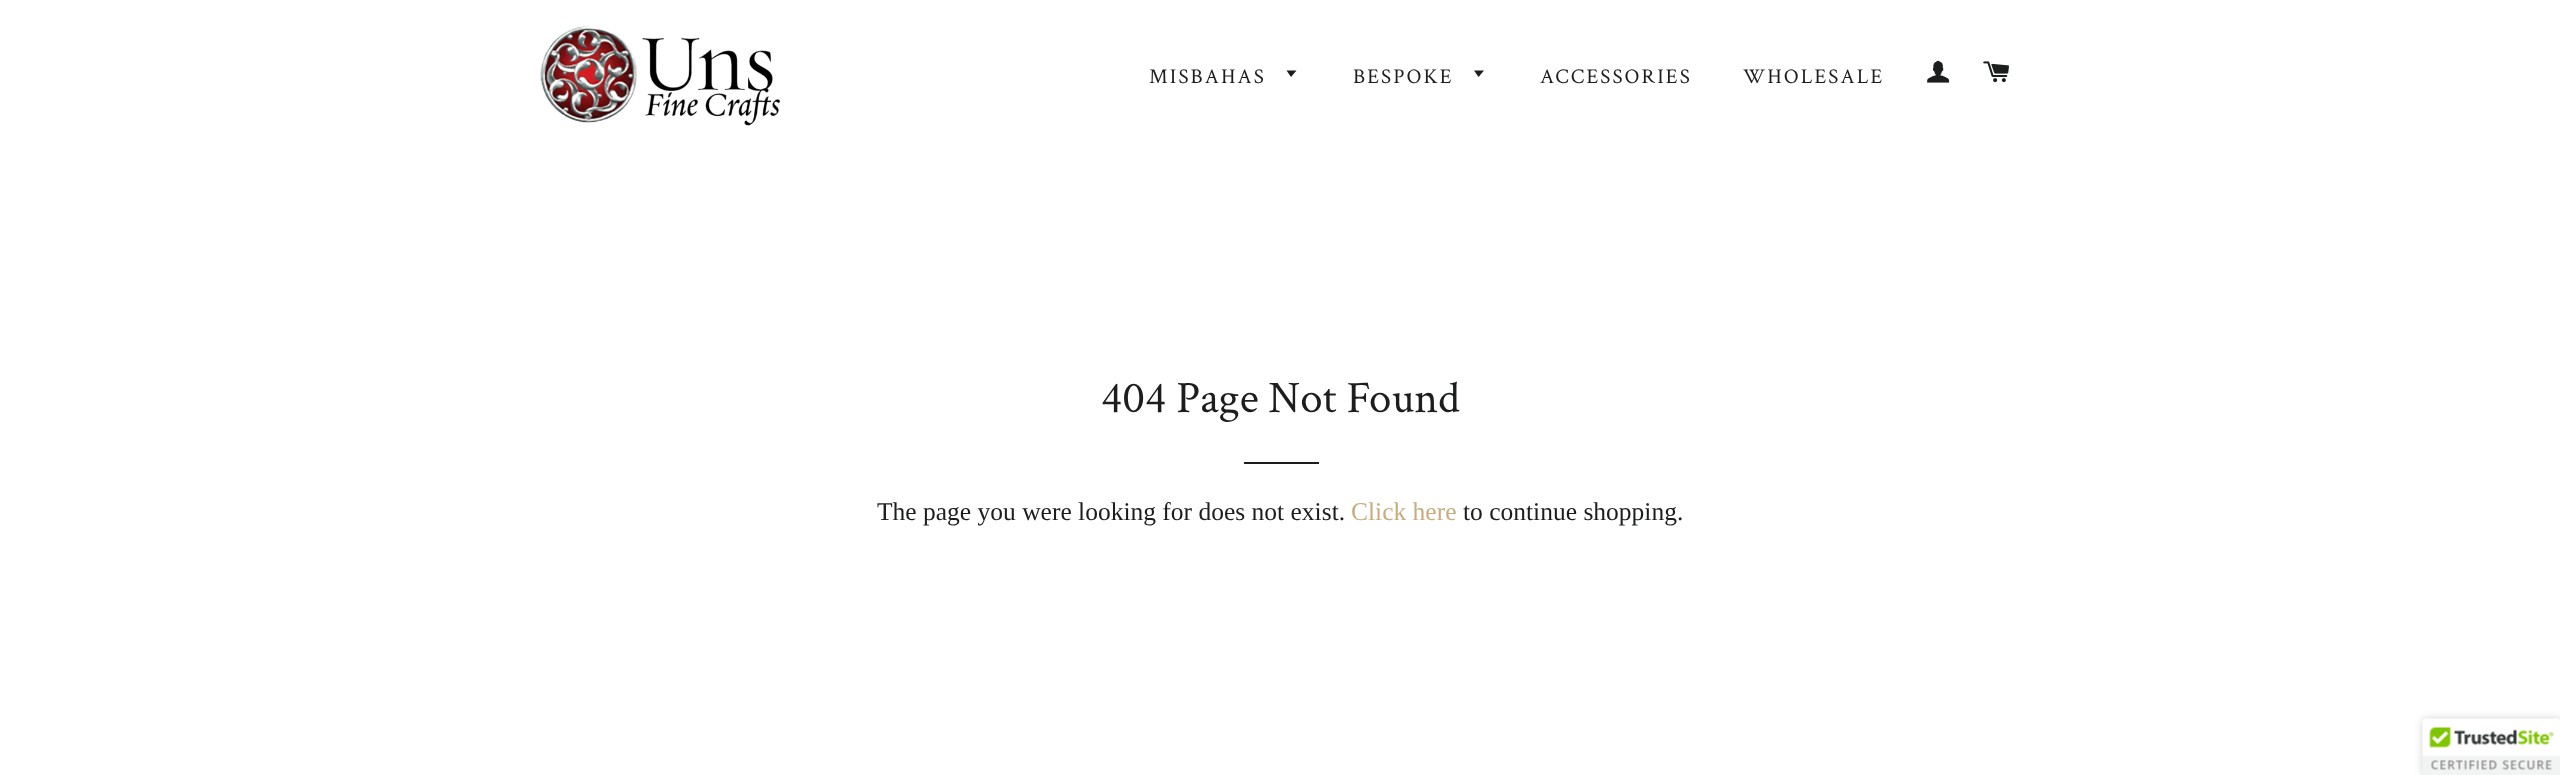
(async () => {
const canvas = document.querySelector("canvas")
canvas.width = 2560
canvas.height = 775
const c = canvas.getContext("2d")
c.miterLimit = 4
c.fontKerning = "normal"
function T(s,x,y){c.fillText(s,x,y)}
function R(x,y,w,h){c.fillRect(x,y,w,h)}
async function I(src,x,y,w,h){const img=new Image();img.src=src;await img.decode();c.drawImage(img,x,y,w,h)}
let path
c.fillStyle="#fff"
R(0,0,2560,775)
await I("1.png",540,26,241,100)
c.letterSpacing="2.1px"
c.font="21px Crimson Text"
c.fillStyle="#1c1d1d"
T("MISBAHAS",1149,83)
path = new Path2D("M1286.5 70.5l4.5 6.5l5.5-6.5z")
c.fill(path)
T("BESPOKE",1353,83)
path = new Path2D("M1474 70.5l4.5 6.5l5.5-6.5z")
c.fill(path)
T("ACCESSORIES",1540,83)
T("WHOLESALE",1743,83)
await I("2.png",1927,60,23,23)
await I("3.png",1983,61,26,22)
c.letterSpacing="0px"
c.font="45px Crimson Text"
T("404 Page Not Found",1101,412)
R(1244,462,75,2)
c.font="25.5px Liberation Serif"
T("The page you were looking for does not exist.",877,520)
c.fillStyle="#c7ac7f"
T("Click here",1351,520)
c.fillStyle="#1c1d1d"
T("to continue shopping.",1463,520)
c.fillStyle="#00000033"
c.filter="blur(4px)"
c.beginPath()
c.roundRect(2423,719,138,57,3)
c.fill()
c.filter="none"
await I("4.png",2422,718,138,57)
})()
